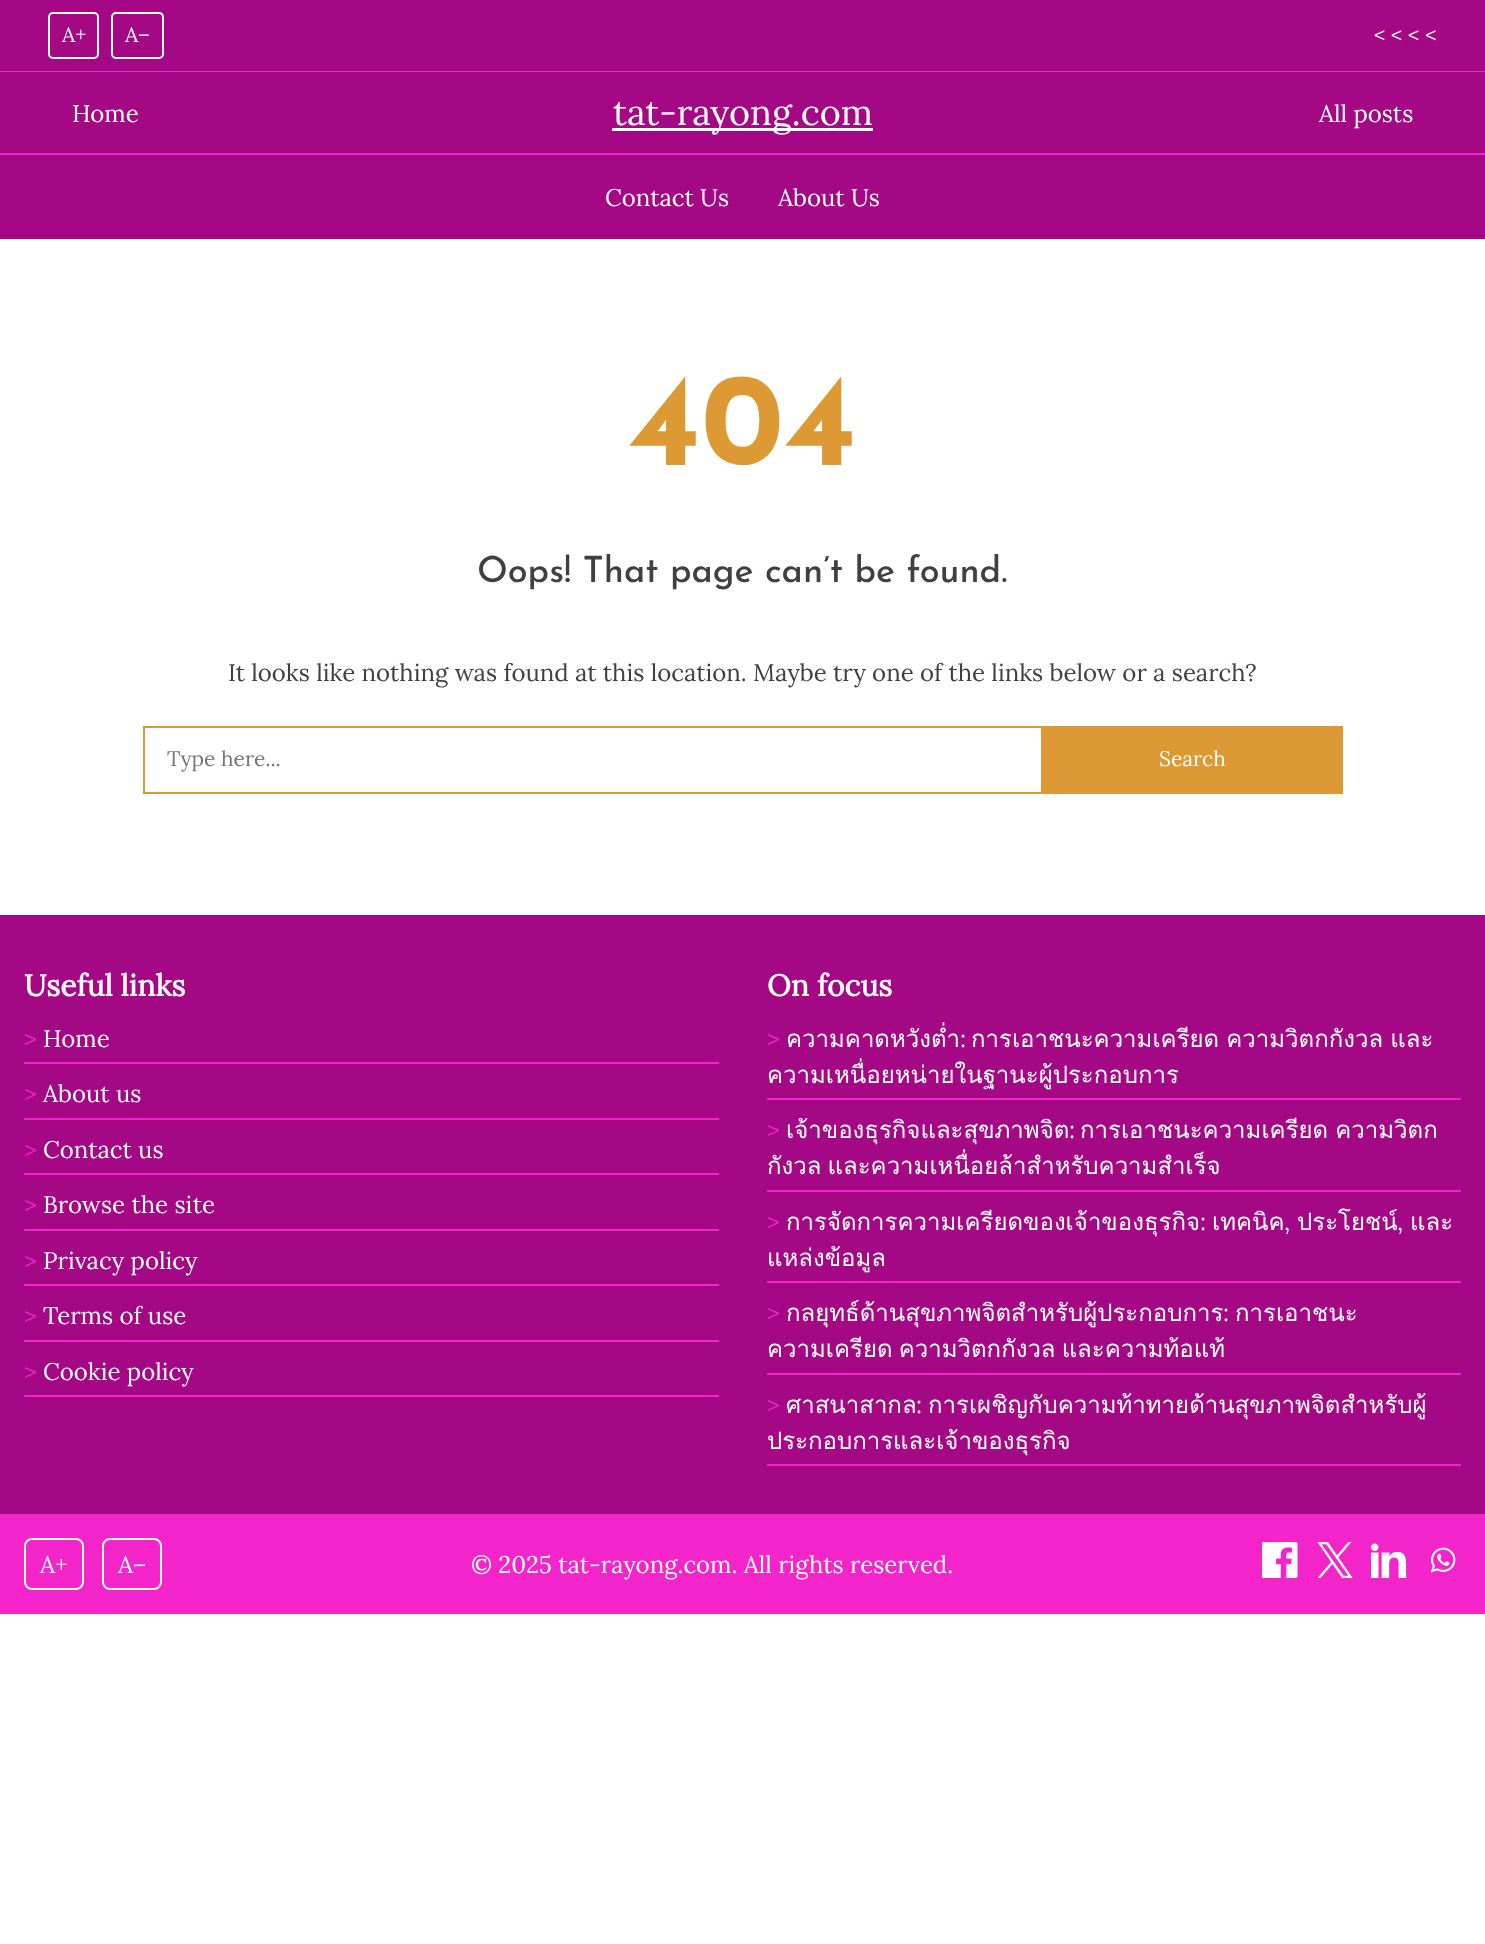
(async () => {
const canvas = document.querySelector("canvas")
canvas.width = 1485
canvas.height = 1944
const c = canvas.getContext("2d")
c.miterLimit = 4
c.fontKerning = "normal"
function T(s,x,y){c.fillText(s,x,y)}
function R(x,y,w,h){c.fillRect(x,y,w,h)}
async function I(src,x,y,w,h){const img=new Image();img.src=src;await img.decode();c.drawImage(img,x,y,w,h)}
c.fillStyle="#fff"
R(0,0,1485,1944)
c.fillStyle="#a40885"
R(0,0,1485,71)
c.beginPath()
c.roundRect(49,13,49,45,4)
c.strokeStyle="#fff"
c.lineWidth=2
c.stroke()
c.font="21px Lora"
c.fillStyle="#fff"
T("A+",62,42)
c.beginPath()
c.roundRect(112,13,51,45,4)
c.stroke()
T("A–",125,42)
c.font="21.5px Lora"
T("< < < <",1374,42)
c.fillStyle="#f324ca"
R(0,71,1485,1)
c.fillStyle="#a40885"
R(0,72,1485,81)
c.fillStyle="#f324ca"
R(0,153,1485,2)
c.font="24px Lora"
c.fillStyle="#fff"
T("Home",72,122)
R(612,128,261,3)
c.font="36px Lora"
T("tat-rayong.com",613,125)
c.font="24px Lora"
T("All posts",1319,122)
c.fillStyle="#a40885"
R(0,155,1485,84)
c.fillStyle="#fff"
T("Contact Us",605,206)
T("About Us",778,206)
c.font="bold 132px Josefin Sans"
c.fillStyle="#d93"
T("404",628,465)
c.font="500 36px Josefin Sans"
c.fillStyle="#404040"
T("Oops! That page can’t be found.",477,582)
c.font="24px Lora"
T("It looks like nothing was found at this location. Maybe try one of the links below or a search?",228,681)
c.strokeStyle="#d93"
c.strokeRect(144,727,898,66)
c.font="21px Lora"
c.fillStyle="#757575"
T("Type here...",167,766)
c.fillStyle="#d93"
R(1043,726,300,68)
c.fillStyle="#fff"
T("Search",1159,766)
c.fillStyle="#a40885"
R(0,915,1485,599)
c.font="bold 30px Lora"
c.fillStyle="#fff"
T("Useful links",24,996)
c.fillStyle="#f324ca"
R(24,1062,695,2)
c.font="24px Lora"
T(">",24,1047)
c.fillStyle="#fff"
T("Home",43,1047)
c.fillStyle="#f324ca"
R(24,1118,695,2)
T(">",24,1102)
c.fillStyle="#fff"
T("About us",43,1102)
c.fillStyle="#f324ca"
R(24,1173,695,2)
T(">",24,1158)
c.fillStyle="#fff"
T("Contact us",43,1158)
c.fillStyle="#f324ca"
R(24,1229,695,2)
T(">",24,1213)
c.fillStyle="#fff"
T("Browse the site",43,1213)
c.fillStyle="#f324ca"
R(24,1284,695,2)
T(">",24,1269)
c.fillStyle="#fff"
T("Privacy policy",43,1269)
c.fillStyle="#f324ca"
R(24,1340,695,2)
T(">",24,1324)
c.fillStyle="#fff"
T("Terms of use",43,1324)
c.fillStyle="#f324ca"
R(24,1395,695,2)
T(">",24,1380)
c.fillStyle="#fff"
T("Cookie policy",43,1380)
c.font="bold 30px Lora"
T("On focus",767,996)
c.fillStyle="#f324ca"
R(767,1098,694,2)
c.font="24px Lora"
T(">",767,1047)
c.font="24px Loma"
c.fillStyle="#fff"
T("ความคาดหวังต่ำ",786,1047)
c.font="24px Lora"
T(":",960,1047)
c.wordSpacing="-1px"
c.font="24px Loma"
T("การเอาชนะความเครียด ความวิตกกังวล และ",971,1047)
c.wordSpacing="0px"
T("ความเหนื่อยหน่ายในฐานะผู้ประกอบการ",767,1083)
c.fillStyle="#f324ca"
R(767,1190,694,2)
c.font="24px Lora"
T(">",767,1138)
c.font="24px Loma"
c.fillStyle="#fff"
T("เจ้าของธุรกิจและสุขภาพจิต",786,1138)
c.font="24px Lora"
T(":",1069,1138)
c.wordSpacing="-1px"
c.font="24px Loma"
T("การเอาชนะความเครียด ความวิตก",1080,1138)
c.wordSpacing="-2px"
T("กังวล และความเหนื่อยล้าสำหรับความสำเร็จ",767,1174)
c.fillStyle="#f324ca"
R(767,1281,694,2)
c.wordSpacing="0px"
c.font="24px Lora"
T(">",767,1230)
c.font="24px Loma"
c.fillStyle="#fff"
T("การจัดการความเครียดของเจ้าของธุรกิจ",786,1230)
c.font="24px Lora"
T(":",1200,1230)
c.font="24px Loma"
T("เทคนิค",1212,1230)
c.font="24px Lora"
T(",",1284,1230)
c.font="24px Loma"
T("ประโยชน์",1297,1230)
c.font="24px Lora"
T(",",1397,1230)
c.font="24px Loma"
T("และ",1410,1230)
T("แหล่งข้อมูล",767,1266)
c.fillStyle="#f324ca"
R(767,1373,694,2)
c.font="24px Lora"
T(">",767,1321)
c.font="24px Loma"
c.fillStyle="#fff"
T("กลยุทธ์ด้านสุขภาพจิตสำหรับผู้ประกอบการ",786,1321)
c.font="24px Lora"
T(":",1223,1321)
c.font="24px Loma"
T("การเอาชนะ",1235,1321)
c.wordSpacing="-2px"
T("ความเครียด ความวิตกกังวล และความท้อแท้",767,1357)
c.fillStyle="#f324ca"
R(767,1464,694,2)
c.wordSpacing="0px"
c.font="24px Lora"
T(">",767,1413)
c.font="24px Loma"
c.fillStyle="#fff"
T("ศาสนาสากล",786,1413)
c.font="24px Lora"
T(":",916,1413)
c.font="24px Loma"
T("การเผชิญกับความท้าทายด้านสุขภาพจิตสำหรับผู้",928,1413)
T("ประกอบการและเจ้าของธุรกิจ",767,1449)
c.fillStyle="#f324ca"
R(0,1514,1485,100)
c.beginPath()
c.roundRect(25,1539,58,50,7)
c.strokeStyle="#fff"
c.stroke()
c.font="24px Lora"
c.fillStyle="#fff"
T("A+",40,1573)
c.beginPath()
c.roundRect(103,1539,58,50,7)
c.stroke()
T("A–",118,1573)
T("© 2025 tat-rayong.com. All rights reserved.",471,1573)
await I("1.png",1262,1542,36,36)
await I("2.png",1317,1542,36,36)
await I("3.png",1371,1543,36,35)
await I("4.png",1430,1547,26,26)
})()
